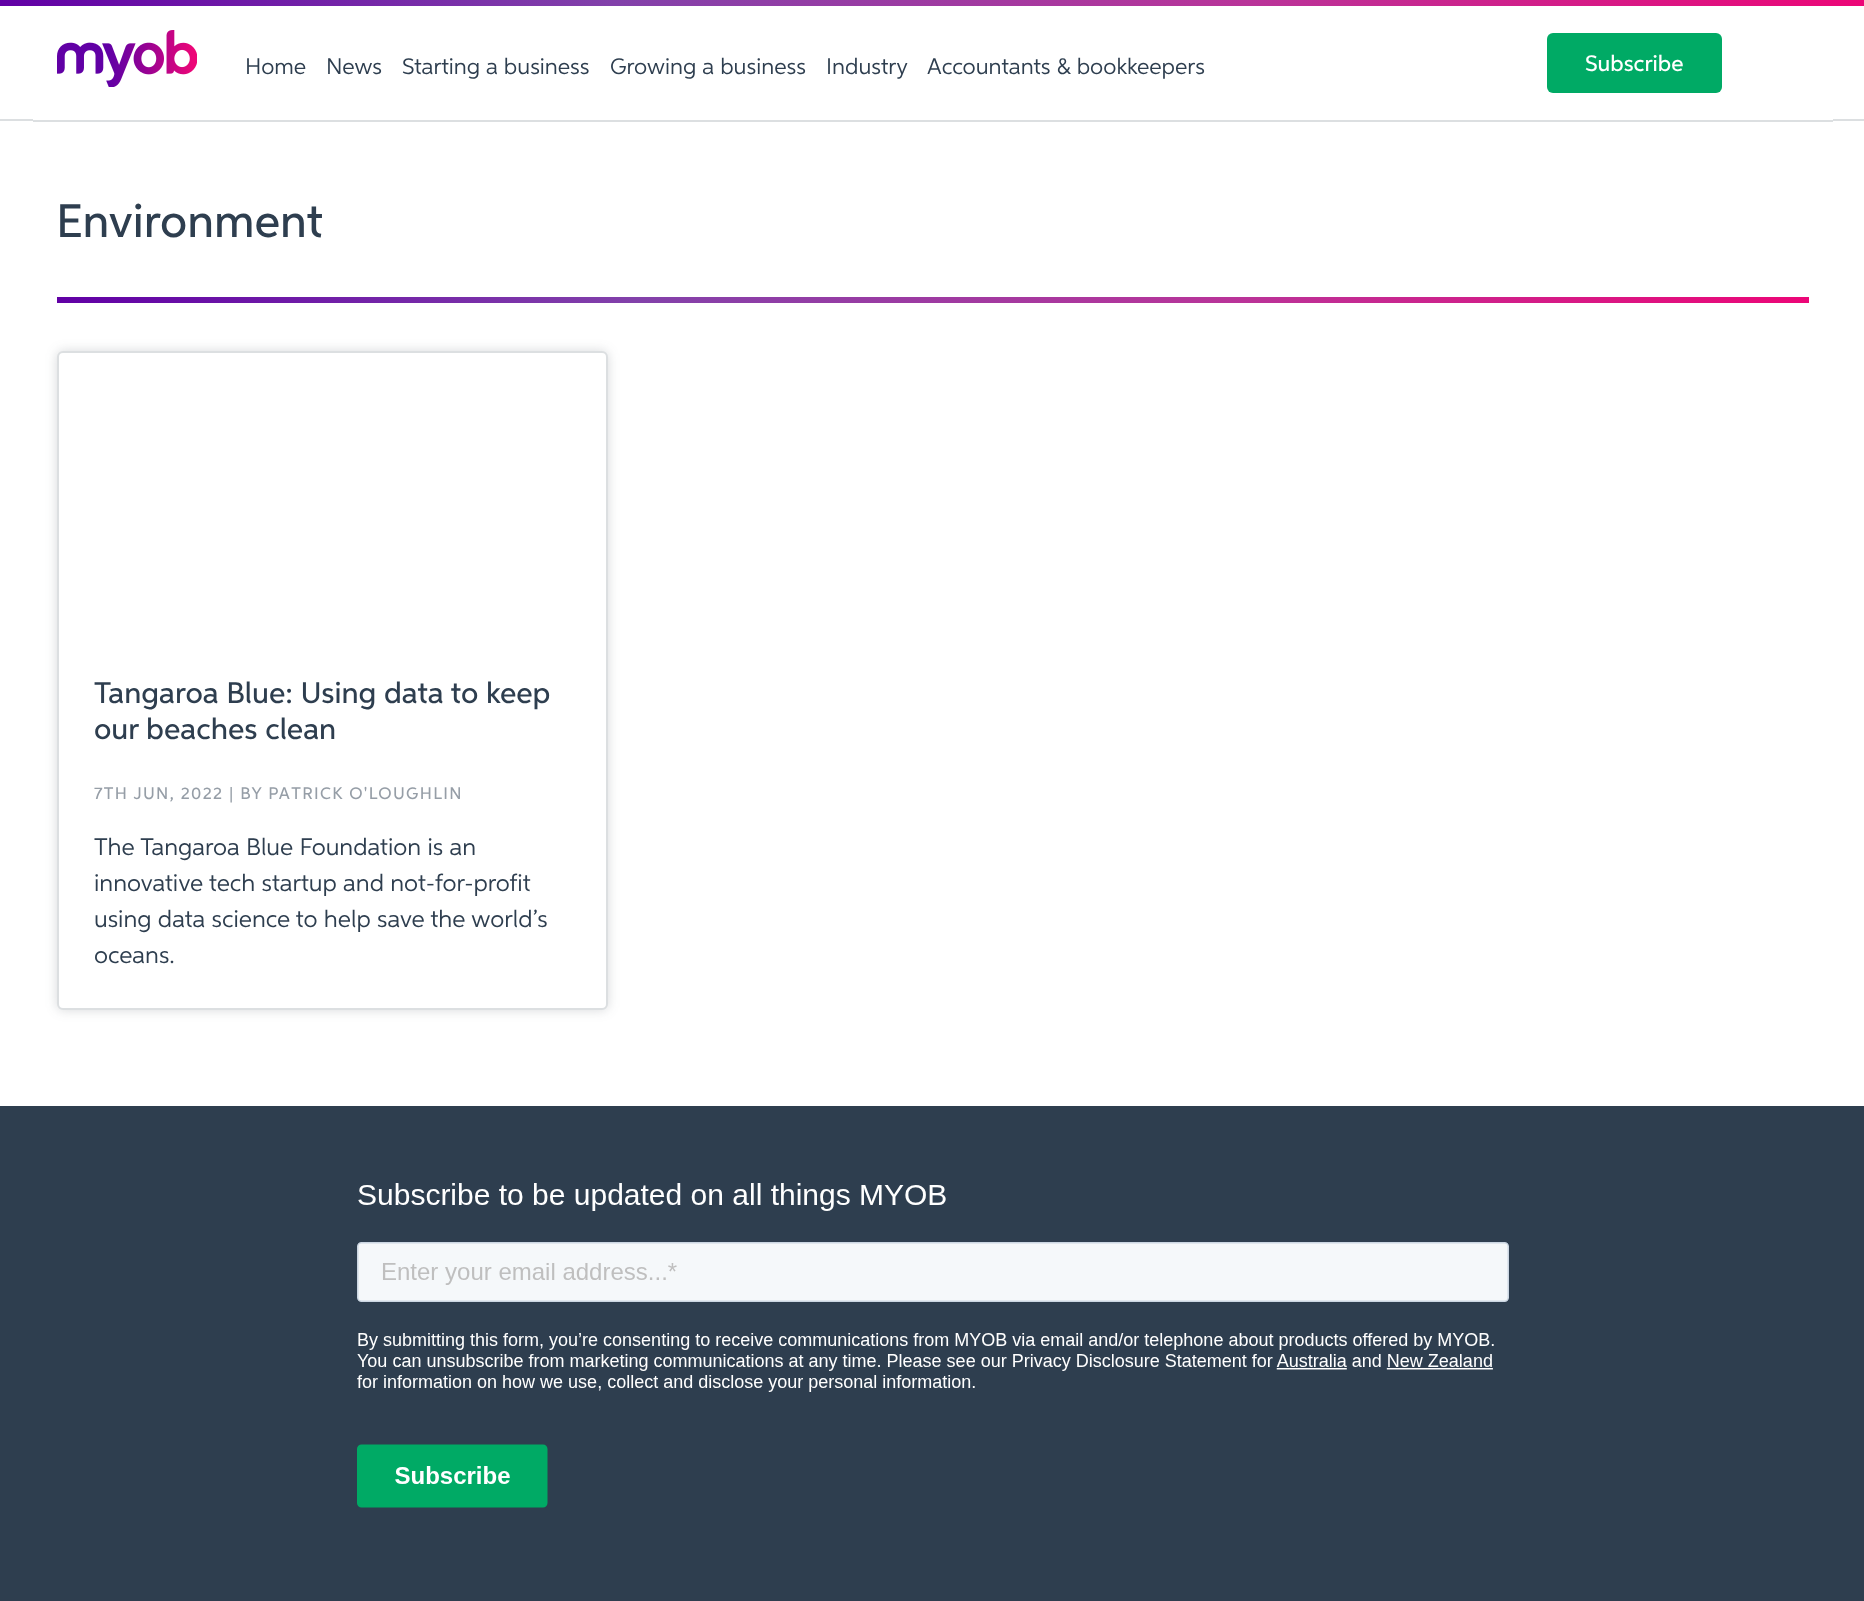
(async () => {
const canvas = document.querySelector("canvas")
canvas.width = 1864
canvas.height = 1601
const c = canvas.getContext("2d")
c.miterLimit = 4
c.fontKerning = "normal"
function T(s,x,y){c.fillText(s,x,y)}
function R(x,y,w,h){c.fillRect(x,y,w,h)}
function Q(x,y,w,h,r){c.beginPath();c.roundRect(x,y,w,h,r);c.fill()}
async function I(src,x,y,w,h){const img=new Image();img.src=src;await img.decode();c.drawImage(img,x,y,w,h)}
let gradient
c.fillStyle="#fff"
R(0,0,1864,1601)
c.fillStyle="#dcdfe1"
R(0,119,1864,2)
gradient = c.createLinearGradient(0,3,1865,3)
gradient.addColorStop(0,"#6100a5")
gradient.addColorStop(.33,"#8241aa")
gradient.addColorStop(.67,"#b93499")
gradient.addColorStop(1,"#ec0677")
c.fillStyle = gradient
R(0,0,1864,6)
c.fillStyle="#fff"
R(33,119,1800,1)
c.fillStyle="#dcdfe1"
R(33,121,1800,1)
await I("1.png",57,30,140,57)
c.font="22.5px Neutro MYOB"
c.fillStyle="#2e3e4f"
T("Home",245,74)
T("News",326,74)
T("Starting a business",402,74)
T("Growing a business",610,74)
T("Industry",826,74)
T("Accountants & bookkeepers",927,74)
c.fillStyle="#00aa65"
Q(1547,33,175,60,6)
c.font="500 22.5px Neutro MYOB"
c.fillStyle="#fff"
T("Subscribe",1585,71)
c.font="500 47px Neutro MYOB"
c.fillStyle="#2e3e4f"
T("Environment",56,237)
gradient = c.createLinearGradient(57,300,1809,300)
gradient.addColorStop(0,"#6100a5")
gradient.addColorStop(.33,"#8241aa")
gradient.addColorStop(.67,"#b93499")
gradient.addColorStop(1,"#ec0677")
c.fillStyle = gradient
R(57,297,1752,6)
c.fillStyle="#36434d33"
c.filter="blur(6px)"
c.beginPath()
c.roundRect(57,351,551,659,6)
c.fill()
c.filter="none"
c.fillStyle="#fff"
c.beginPath()
c.roundRect(58,352,549,657,5)
c.fill()
c.strokeStyle="#dcdfe1"
c.lineWidth=2
c.stroke()
c.font="500 30px Neutro MYOB"
c.fillStyle="#2e3e4f"
T("Tangaroa Blue: Using data to keep",94,703)
T("our beaches clean",94,739)
c.letterSpacing="1.35px"
c.font="500 16.8px Neutro MYOB"
c.fillStyle="#969ea7"
T("7TH JUN, 2022 | BY PATRICK O'LOUGHLIN",94,799)
c.letterSpacing="0px"
c.font="24px Neutro MYOB"
c.fillStyle="#2e3e4f"
T("The Tangaroa Blue Foundation is an",94,855)
T("innovative tech startup and not-for-profit",94,891)
T("using data science to help save the world’s",94,927)
T("oceans.",94,963)
R(0,1106,1864,495)
await I("2.png",357,1183,1152,325)
})()
